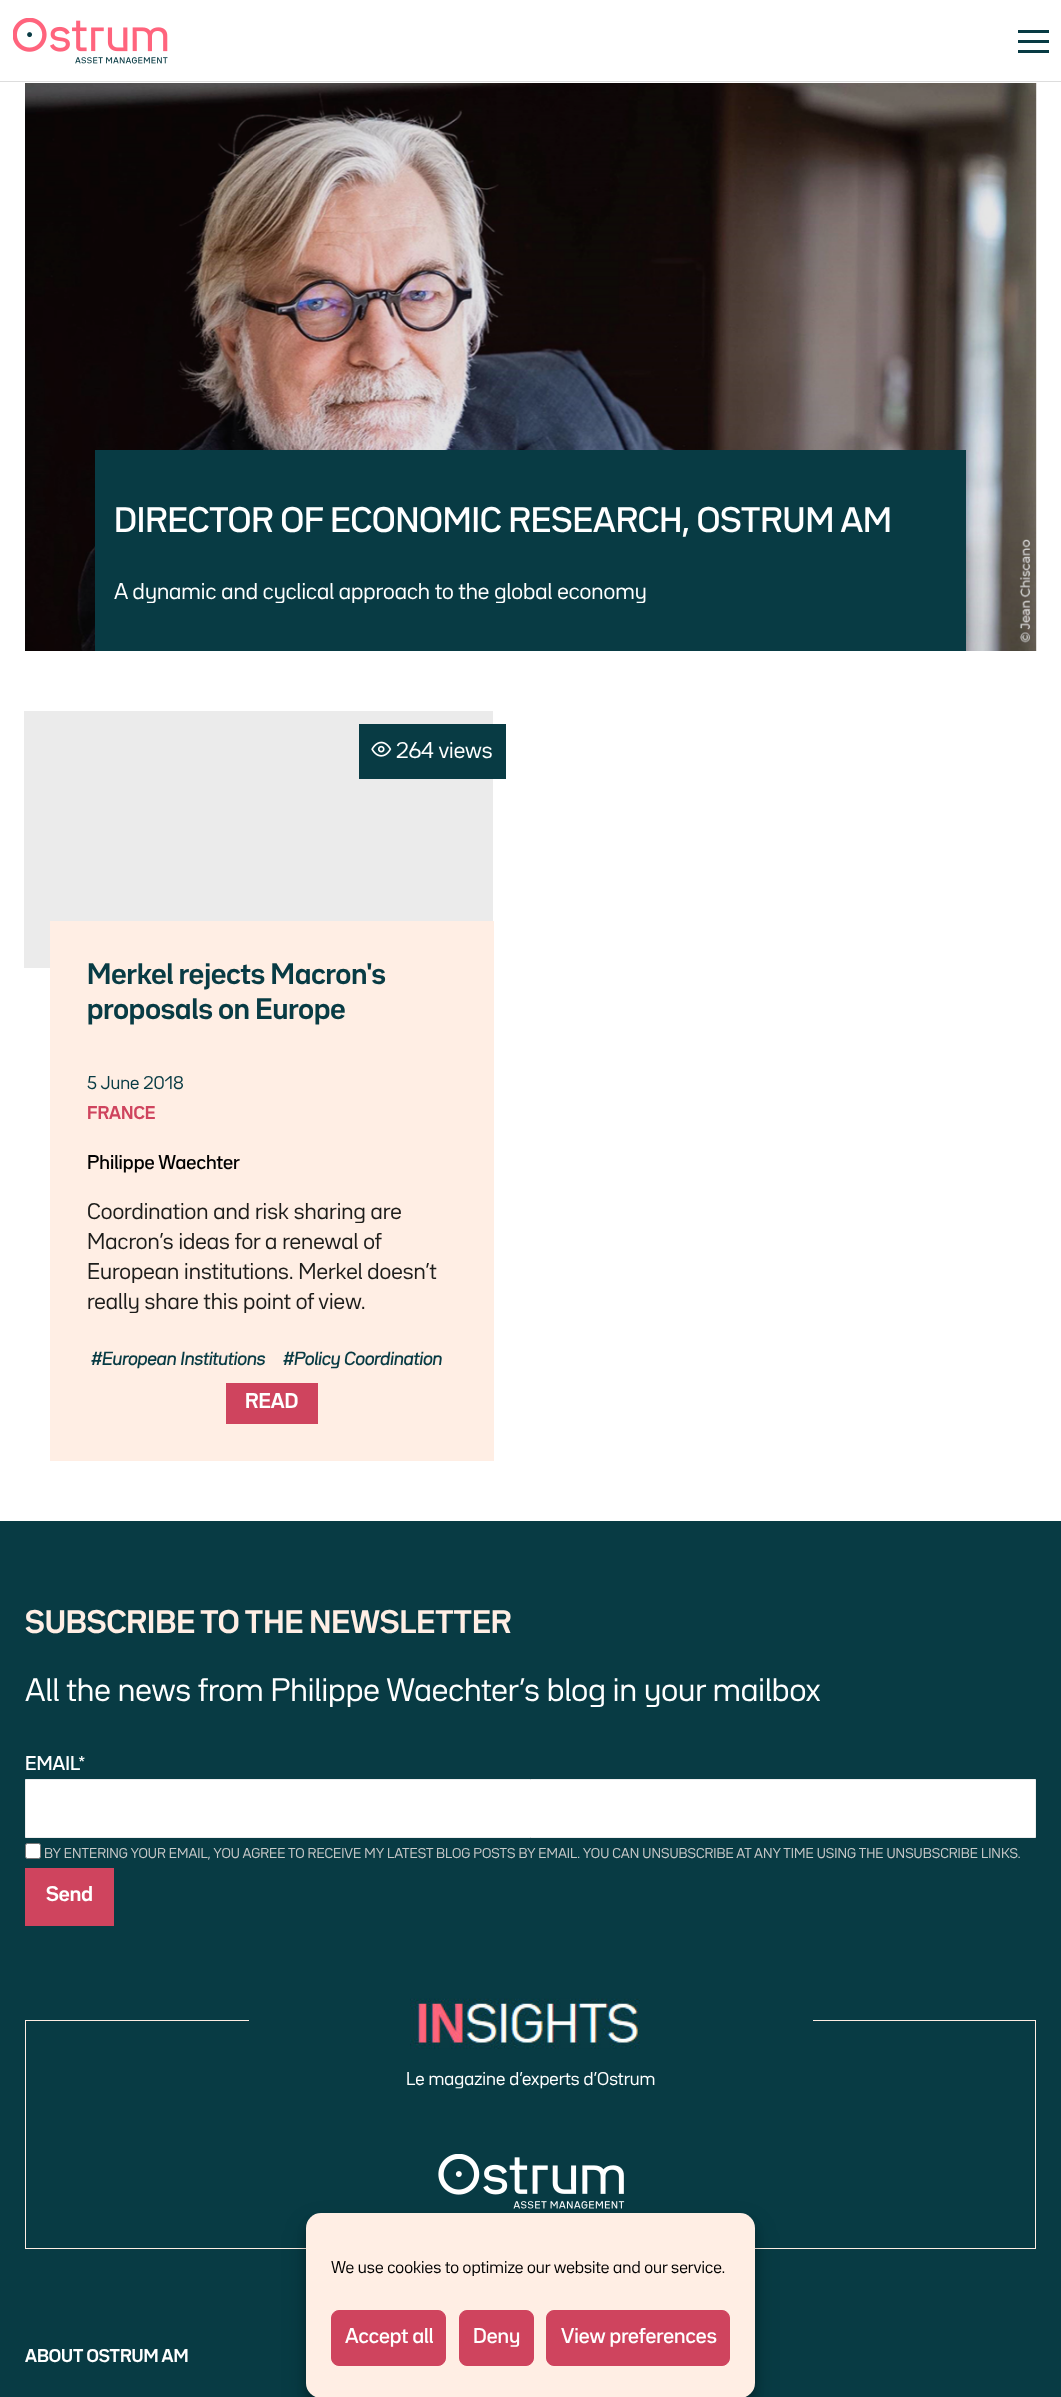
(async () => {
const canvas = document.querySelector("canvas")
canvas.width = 1061
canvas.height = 2397
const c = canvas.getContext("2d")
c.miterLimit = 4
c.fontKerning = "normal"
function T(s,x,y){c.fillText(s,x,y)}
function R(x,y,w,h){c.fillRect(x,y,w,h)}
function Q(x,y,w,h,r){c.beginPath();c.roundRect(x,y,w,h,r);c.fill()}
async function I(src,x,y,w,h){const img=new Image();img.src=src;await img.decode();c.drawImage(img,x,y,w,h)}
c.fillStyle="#fff"
R(0,0,1061,2397)
c.fillStyle="#ddd"
R(0,81,1061,1)
await I("1.png",13,18,155,46)
c.fillStyle="#083b44"
R(1018,40,31,3)
R(1018,30,31,3)
R(1018,50,31,3)
await I("2.png",25,83,1012,568)
R(95,450,871,201)
c.font="500 31.25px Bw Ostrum"
c.fillStyle="#fff"
T("DIRECTOR OF ECONOMIC RESEARCH, OSTRUM AM",114,532)
c.font="20px Bw Ostrum"
T("A dynamic and cyclical approach to the global economy",114,599)
c.fillStyle="#ebebeb"
R(24,711,469,257)
c.fillStyle="#ffeee4"
R(50,921,444,540)
c.fillStyle="#083b44"
R(359,724,147,55)
await I("3.png",371,741,21,16)
c.fillStyle="#fff"
T("264 views",396,758)
c.font="bold 26.25px Bw Ostrum"
c.fillStyle="#083b44"
T("Merkel rejects Macron's",87,984)
T("proposals on Europe",87,1019)
c.font="16.25px Bw Ostrum"
T("5 June 2018",87,1089)
c.font="bold 16.25px Bw Ostrum"
c.fillStyle="#cf445e"
T("FRANCE",87,1119)
c.font="500 17.5px Bw Ostrum"
c.fillStyle="#000"
T("Philippe Waechter",87,1169)
c.font="20px Bw Ostrum"
c.fillStyle="#1d1d1b"
T("Coordination and risk sharing are",87,1219)
T("Macron’s ideas for a renewal of",87,1249)
T("European institutions. Merkel doesn’t",87,1279)
T("really share this point of view.",87,1309)
c.font="italic bold 16.25px Bw Ostrum"
c.fillStyle="#083b44"
T("#European Institutions",91,1365)
T("#Policy Coordination",283,1365)
c.fillStyle="#cf445e"
R(226,1383,92,41)
c.font="bold 18.75px Bw Ostrum"
c.fillStyle="#fff"
T("READ",245,1408)
c.fillStyle="#083b44"
R(0,1521,1061,876)
c.font="bold 28.75px Bw Ostrum"
c.fillStyle="#ffeee4"
T("SUBSCRIBE TO THE NEWSLETTER",25,1633)
c.font="28.75px Bw Ostrum"
c.fillStyle="#fff"
T("All the news from Philippe Waechter’s blog in your mailbox",25,1701)
c.font="500 17.5px Bw Ostrum"
T("EMAIL*",25,1770)
c.beginPath()
c.rect(25.5,1779.5,1010,58)
c.fill()
c.strokeStyle="#eee"
c.stroke()
c.beginPath()
c.roundRect(25.5,1843.5,15,15,2)
c.fill()
c.strokeStyle="#767676"
c.stroke()
c.font="12.5px Bw Ostrum"
c.fillStyle="#c9c9c9"
T("BY ENTERING YOUR EMAIL, YOU AGREE TO RECEIVE MY LATEST BLOG POSTS BY EMAIL. YOU CAN UNSUBSCRIBE AT ANY TIME USING THE UNSUBSCRIBE LINKS.",44,1858)
c.fillStyle="#cf445e"
R(25,1868,89,58)
c.font="bold 18.75px Bw Ostrum"
c.fillStyle="#fff"
T("Send",46,1901)
c.strokeStyle="#ffeee4"
c.strokeRect(25.5,2020.5,1010,228)
c.fillStyle="#083b44"
R(249,2020,564,1)
await I("4.png",410,1998,230,51)
c.font="16.25px Bw Ostrum"
c.fillStyle="#fff"
T("Le magazine d’experts d’Ostrum",406,2085)
await I("5.png",438,2154,187,55)
c.font="bold 16.25px Bw Ostrum"
T("ABOUT OSTRUM AM",25,2362)
c.fillStyle="#0000003b"
c.filter="blur(4px)"
c.beginPath()
c.roundRect(306,2220,449,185,15)
c.fill()
c.filter="none"
c.fillStyle="#00000030"
c.filter="blur(12.5px)"
c.beginPath()
c.roundRect(306,2225,449,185,15)
c.fill()
c.filter="none"
c.fillStyle="#ffeee4"
Q(306,2213,449,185,15)
c.font="15px Bw Ostrum"
c.fillStyle="#000"
T("We use cookies to optimize our website and our service.",331,2273)
c.fillStyle="#cf445e"
c.beginPath()
c.roundRect(331.5,2310.5,114,55,7.5)
c.fill()
c.strokeStyle="#cf445e"
c.stroke()
c.font="500 18.75px Bw Ostrum"
c.fillStyle="#fff"
T("Accept all",345,2343)
c.fillStyle="#cf445e"
c.beginPath()
c.roundRect(459.5,2310.5,74,55,7.5)
c.fill()
c.stroke()
c.fillStyle="#fff"
T("Deny",473,2343)
c.fillStyle="#cf445e"
c.beginPath()
c.roundRect(546.5,2310.5,183,55,7.5)
c.fill()
c.stroke()
c.fillStyle="#fff"
T("View preferences",561,2343)
})()
